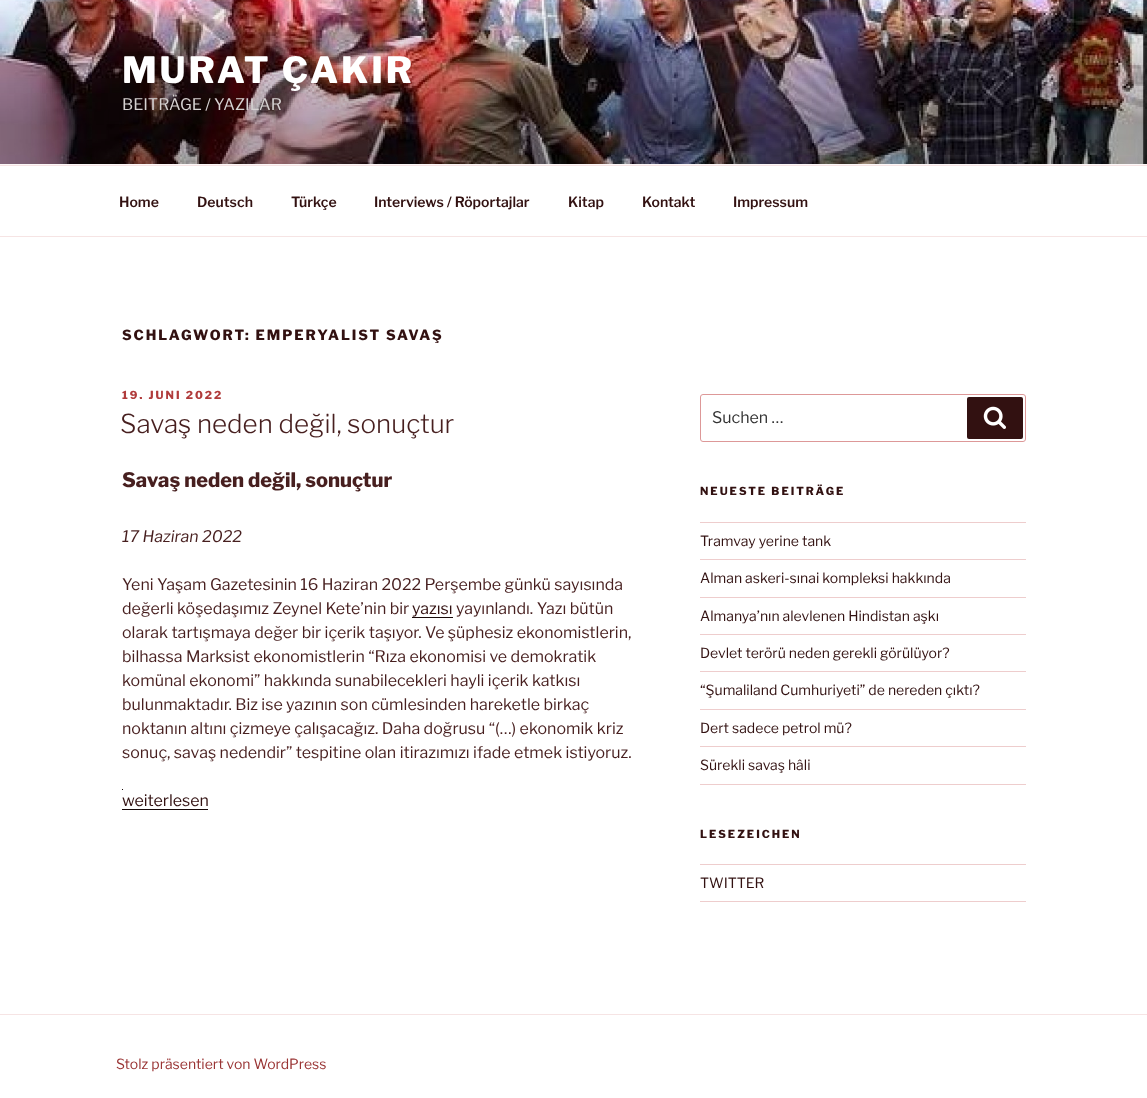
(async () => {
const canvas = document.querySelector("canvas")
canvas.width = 1147
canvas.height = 1098
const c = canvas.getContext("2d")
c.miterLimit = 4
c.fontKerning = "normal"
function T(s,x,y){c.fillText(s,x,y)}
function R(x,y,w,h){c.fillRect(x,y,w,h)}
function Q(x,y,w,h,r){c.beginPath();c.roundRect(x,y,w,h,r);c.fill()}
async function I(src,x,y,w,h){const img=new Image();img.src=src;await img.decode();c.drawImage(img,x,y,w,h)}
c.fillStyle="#fff"
R(0,0,1147,1098)
c.fillStyle="#fcf7f7"
R(0,164,1147,1)
await I("1.png",0,0,1147,164)
c.letterSpacing="2.9px"
c.font="800 36px Libre Franklin"
c.fillStyle="#fff"
T("MURAT ÇAKIR",122,83)
c.letterSpacing="0px"
c.font="16px Libre Franklin"
c.fillStyle="#d6d2d2"
T("BEITRÄGE / YAZILAR",122,110)
c.fillStyle="#f6e4e4"
R(0,165,1147,1)
R(0,236,1147,1)
c.font="600 14px Libre Franklin"
c.fillStyle="#321111"
T("Home",119,207)
T("Deutsch",197,207)
T("Türkçe",291,207)
T("Interviews / Röportajlar",374,207)
T("Kitap",568,207)
T("Kontakt",642,207)
T("Impressum",733,207)
c.letterSpacing="1.95px"
c.font="800 14px Libre Franklin"
T("SCHLAGWORT: EMPERYALIST SAVAŞ",122,340)
c.letterSpacing="2px"
c.font="800 11px Libre Franklin"
c.fillStyle="#b03b3b"
T("19. JUNI 2022",122,399)
c.letterSpacing="0px"
c.font="300 26px Libre Franklin"
c.fillStyle="#471f1f"
T("Savaş neden değil, sonuçtur",120,433)
c.font="800 20px Libre Franklin"
T("Savaş neden değil, sonuçtur",122,487)
c.font="italic 16px Libre Franklin"
T("17 Haziran 2022",122,542)
c.font="16px Libre Franklin"
T("Yeni Yaşam Gazetesinin 16 Haziran 2022 Perşembe günkü sayısında",122,590)
T("değerli köşedaşımız Zeynel Kete’nin bir",122,614)
c.fillStyle="#321111"
T("yazısı",412,614)
c.fillStyle="#170808"
R(412,617,41,1)
c.fillStyle="#471f1f"
T("yayınlandı. Yazı bütün",456,614)
T("olarak tartışmaya değer bir içerik taşıyor. Ve şüphesiz ekonomistlerin,",122,638)
T("bilhassa Marksist ekonomistlerin “Rıza ekonomisi ve demokratik",122,662)
T("komünal ekonomi” hakkında sunabilecekleri hayli içerik katkısı",122,686)
T("bulunmaktadır. Biz ise yazının son cümlesinden hareketle birkaç",122,710)
T("noktanın altını çizmeye çalışacağız. Daha doğrusu “(…) ekonomik kriz",122,734)
T("sonuç, savaş nedendir” tespitine olan itirazımızı ifade etmek istiyoruz.",122,758)
c.fillStyle="#321111"
T("weiterlesen",122,806)
c.fillStyle="#170808"
R(122,789,1,1)
R(122,809,86,1)
c.beginPath()
c.roundRect(700.5,394.5,325,47,2.5)
c.strokeStyle="#dd9898"
c.stroke()
c.fillStyle="#333"
T("Suchen …",712,423)
c.fillStyle="#321111"
Q(967,397,56,42,2)
await I("2.png",983,406,23,23)
c.letterSpacing="2px"
c.font="800 11px Libre Franklin"
T("NEUESTE BEITRÄGE",700,495)
c.fillStyle="#eecdcd"
R(700,522,326,1)
R(700,559,326,1)
c.letterSpacing="0px"
c.font="14px Libre Franklin"
c.fillStyle="#321111"
T("Tramvay yerine tank",700,546)
c.fillStyle="#eecdcd"
R(700,597,326,1)
c.fillStyle="#321111"
T("Alman askeri-sınai kompleksi hakkında",700,583)
c.fillStyle="#eecdcd"
R(700,634,326,1)
c.fillStyle="#321111"
T("Almanya’nın alevlenen Hindistan aşkı",700,621)
c.fillStyle="#eecdcd"
R(700,671,326,1)
c.fillStyle="#321111"
T("Devlet terörü neden gerekli görülüyor?",700,658)
c.fillStyle="#eecdcd"
R(700,709,326,1)
c.fillStyle="#321111"
T("“Şumaliland Cumhuriyeti” de nereden çıktı?",700,695)
c.fillStyle="#eecdcd"
R(700,746,326,1)
c.fillStyle="#321111"
T("Dert sadece petrol mü?",700,733)
c.fillStyle="#eecdcd"
R(700,784,326,1)
c.fillStyle="#321111"
T("Sürekli savaş hâli",700,770)
c.letterSpacing="2px"
c.font="800 11px Libre Franklin"
T("LESEZEICHEN",700,838)
c.fillStyle="#eecdcd"
R(700,864,326,1)
R(700,901,326,1)
c.letterSpacing="0px"
c.font="14px Libre Franklin"
c.fillStyle="#321111"
T("TWITTER",700,888)
c.fillStyle="#f6e4e4"
R(0,1014,1147,1)
c.fillStyle="#933"
T("Stolz präsentiert von WordPress",116,1069)
})()
